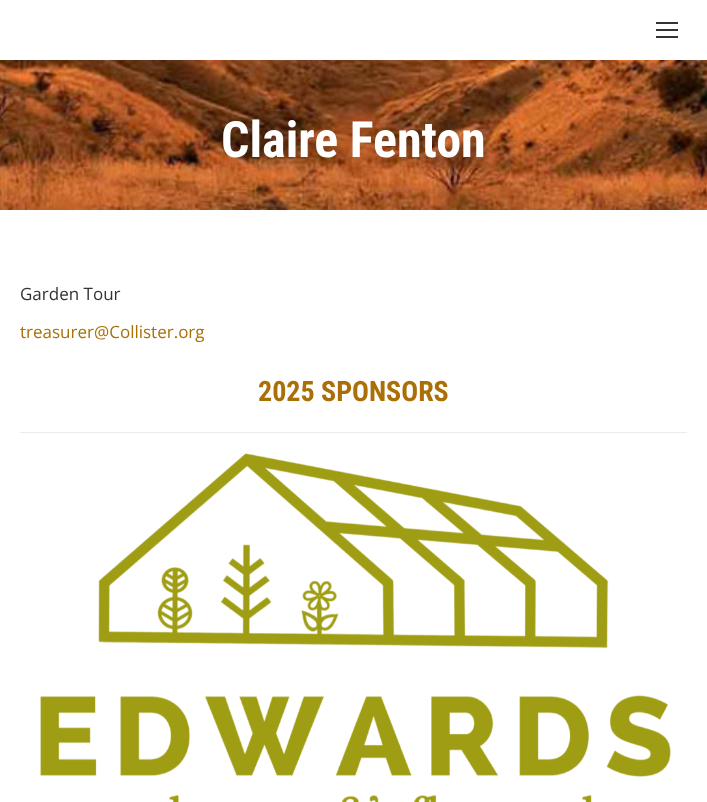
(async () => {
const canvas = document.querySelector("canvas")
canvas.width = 707
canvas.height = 802
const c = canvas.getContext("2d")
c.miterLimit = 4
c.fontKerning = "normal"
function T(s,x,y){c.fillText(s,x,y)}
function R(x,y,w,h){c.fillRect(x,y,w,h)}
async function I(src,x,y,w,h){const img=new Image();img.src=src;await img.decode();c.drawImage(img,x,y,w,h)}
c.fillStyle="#fff"
R(0,0,707,802)
c.fillStyle="#333"
R(656,22,22,2)
R(656,29,22,2)
R(656,36,22,2)
await I("1.png",0,60,707,150)
c.font="bold 50px Roboto Condensed"
c.fillStyle="#fff"
T("Claire Fenton",221,157)
c.font="17px Open Sans"
c.fillStyle="#333"
T("Garden Tour",20,300)
c.fillStyle="#ab6f07"
T("treasurer@Collister.org",20,338)
c.font="bold 28px Roboto Condensed"
T("2025 SPONSORS",258,401)
c.fillStyle="#ebebeb"
R(20,432,667,1)
await I("2.png",40,453,631,349)
})()
